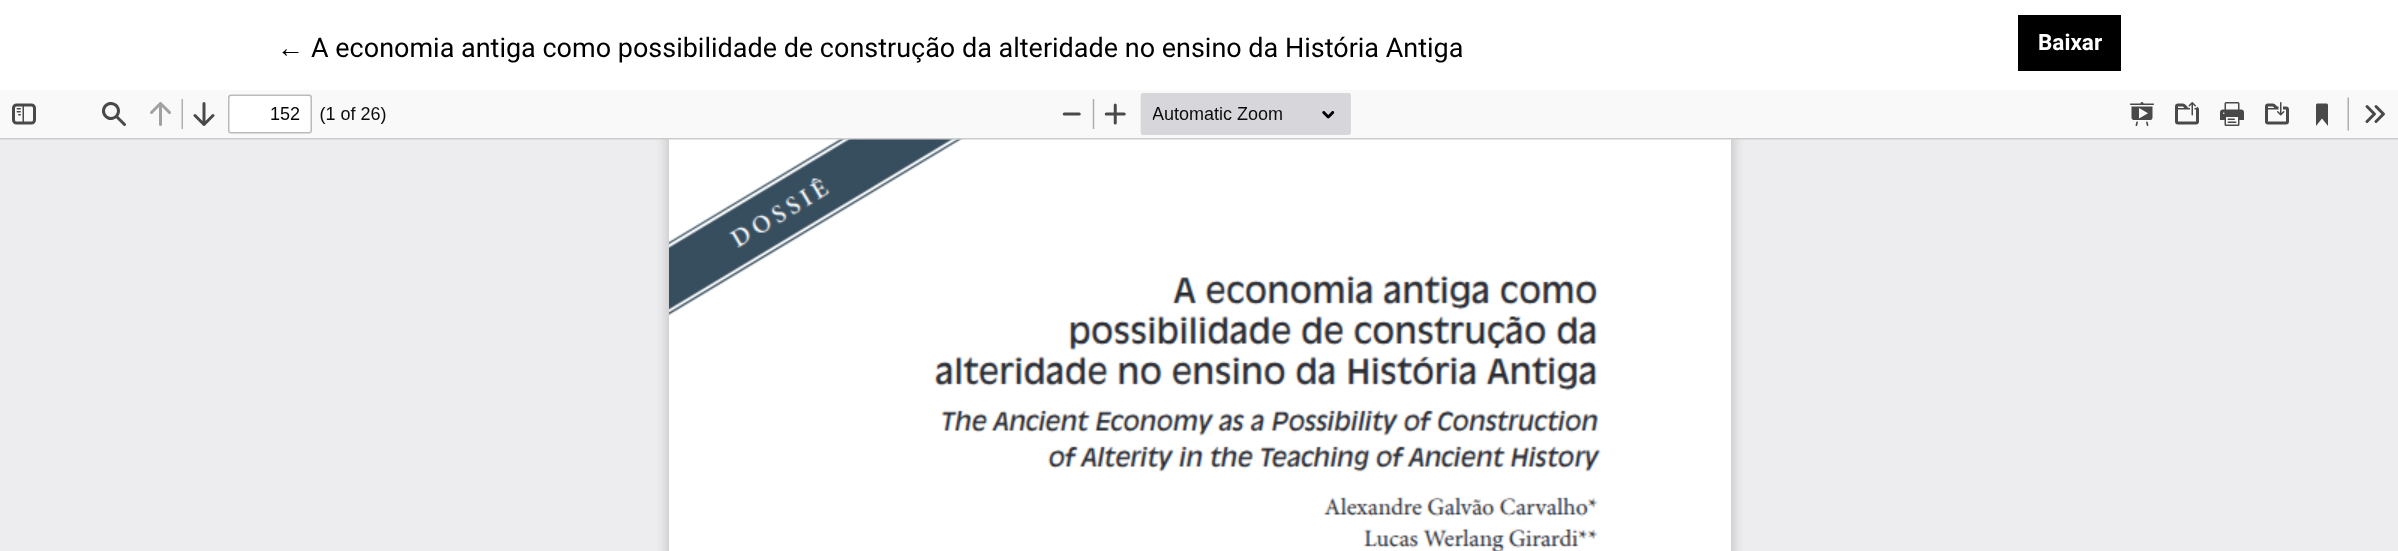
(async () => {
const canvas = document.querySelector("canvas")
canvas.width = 2398
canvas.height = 551
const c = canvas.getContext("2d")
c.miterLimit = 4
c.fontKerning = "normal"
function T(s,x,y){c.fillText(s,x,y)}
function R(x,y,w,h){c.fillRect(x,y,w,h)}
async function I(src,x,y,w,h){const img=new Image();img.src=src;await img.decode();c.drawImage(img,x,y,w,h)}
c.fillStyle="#fff"
R(0,0,2398,551)
c.font="27px Liberation Sans"
c.fillStyle="#000"
T("←",277,57)
c.font="27px Roboto"
T("A economia antiga como possibilidade de construção da alteridade no ensino da História Antiga",311,57)
R(2018,15,103,56)
c.font="bold 22.5px Roboto"
c.fillStyle="#fff"
T("Baixar",2038,50)
await I("1.png",0,90,2398,461)
})()
